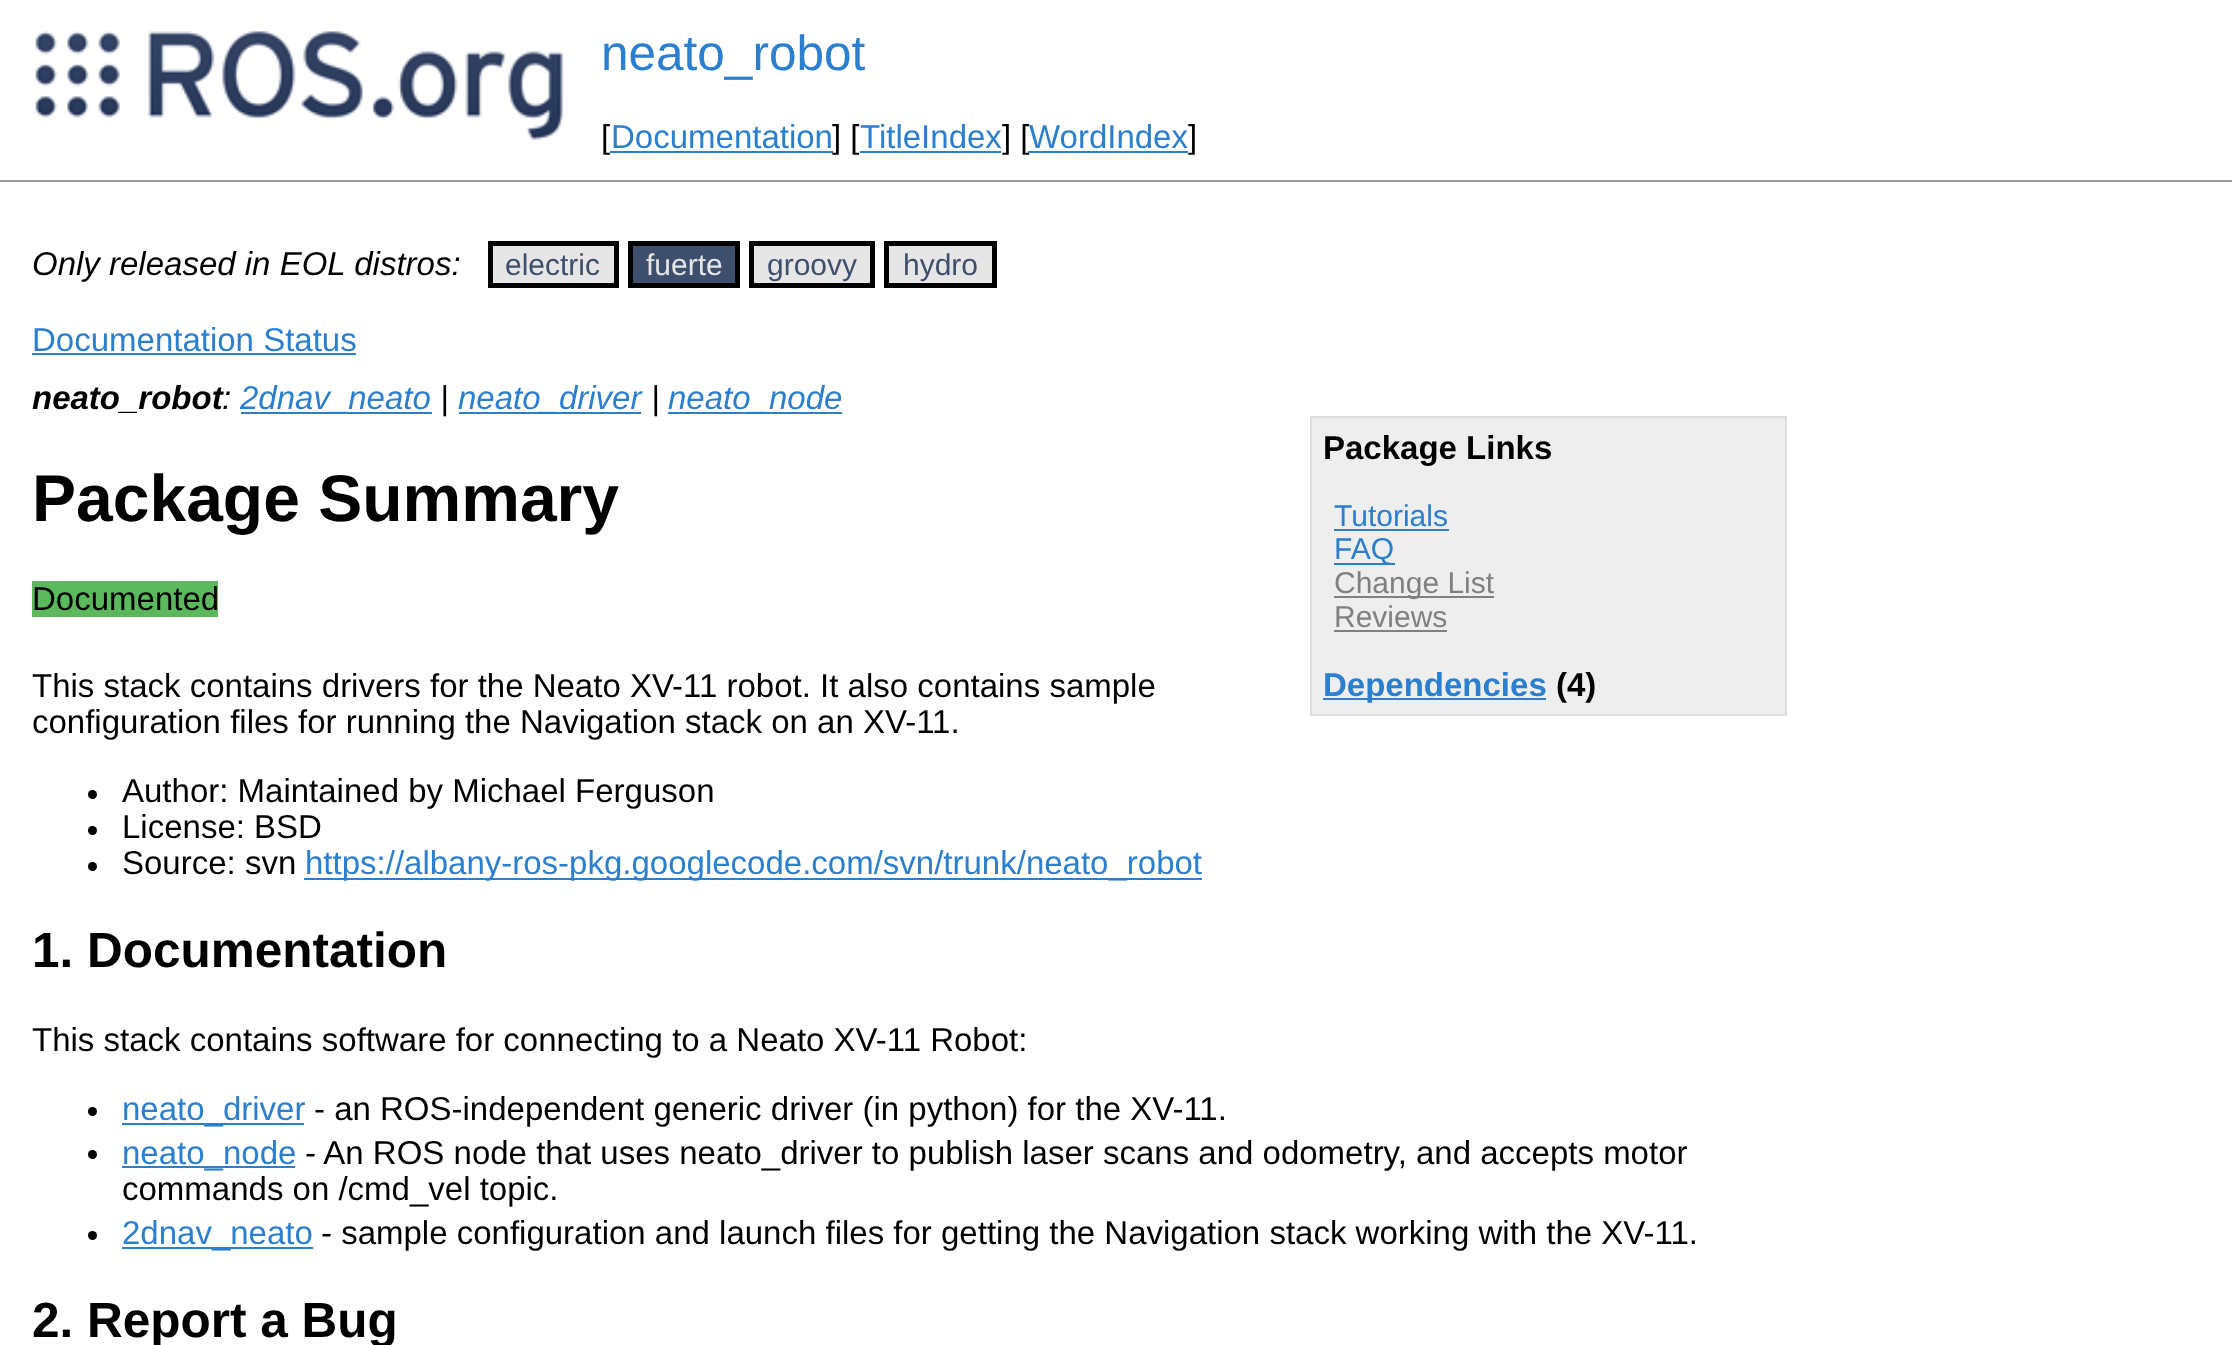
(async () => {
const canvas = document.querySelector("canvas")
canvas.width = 2232
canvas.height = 1345
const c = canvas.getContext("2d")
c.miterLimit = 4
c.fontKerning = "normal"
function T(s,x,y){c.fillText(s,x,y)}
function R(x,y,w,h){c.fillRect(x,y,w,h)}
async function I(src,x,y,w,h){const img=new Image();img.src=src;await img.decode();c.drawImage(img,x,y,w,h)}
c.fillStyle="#fff"
R(0,0,2232,1345)
await I("1.png",35,31,529,110)
c.font="49.5px Liberation Sans"
c.fillStyle="#2b7fcf"
T("neato_robot",601,70)
c.font="33px Liberation Sans"
c.fillStyle="#000"
T("[",601,148)
c.fillStyle="#2b7fcf"
T("Documentation",611,148)
R(610,151,223,2)
c.fillStyle="#000"
T("] [",832,148)
c.fillStyle="#2b7fcf"
T("TitleIndex",860,148)
R(860,151,141,2)
c.fillStyle="#000"
T("] [",1002,148)
c.fillStyle="#2b7fcf"
T("WordIndex",1029,148)
R(1028,151,160,2)
c.fillStyle="#000"
T("]",1188,148)
c.fillStyle="#9c9c9c"
R(0,180,2232,2)
c.font="italic 33px Liberation Sans"
c.fillStyle="#000"
T("Only released in EOL distros:",32,275)
c.fillStyle="#e6e6e6"
c.beginPath()
c.rect(490.5,243.5,126,42)
c.fill()
c.strokeStyle="#000"
c.lineWidth=5
c.stroke()
c.font="30px Liberation Sans"
c.fillStyle="#3e4f6e"
T("electric",505,275)
c.beginPath()
c.rect(630.5,243.5,107,42)
c.fill()
c.stroke()
c.fillStyle="#e6e6e6"
T("fuerte",646,275)
c.beginPath()
c.rect(751.5,243.5,121,42)
c.fill()
c.stroke()
c.fillStyle="#3e4f6e"
T("groovy",767,275)
c.fillStyle="#e6e6e6"
c.beginPath()
c.rect(886.5,243.5,108,42)
c.fill()
c.stroke()
c.fillStyle="#3e4f6e"
T("hydro",903,275)
c.font="33px Liberation Sans"
c.fillStyle="#2b7fcf"
T("Documentation Status",32,351)
R(32,353,324,2)
c.font="italic bold 33px Liberation Sans"
c.fillStyle="#000"
T("neato_robot",32,409)
c.font="italic 33px Liberation Sans"
T(":",222,409)
c.fillStyle="#2b7fcf"
R(241,412,191,2)
T("2dnav_neato",240,409)
c.fillStyle="#000"
T("|",440,409)
c.fillStyle="#2b7fcf"
R(459,412,182,2)
T("neato_driver",458,409)
c.fillStyle="#000"
T("|",651,409)
c.fillStyle="#2b7fcf"
R(668,412,174,2)
T("neato_node",668,409)
c.font="bold 66px Liberation Sans"
c.fillStyle="#000"
T("Package Summary",32,521)
c.fillStyle="#eee"
c.beginPath()
c.rect(1311,417,475,298)
c.fill()
c.strokeStyle="#ddd"
c.lineWidth=2
c.stroke()
c.font="bold 33px Liberation Sans"
c.fillStyle="#000"
T("Package Links",1323,459)
c.font="30px Liberation Sans"
c.fillStyle="#2b7fcf"
T("Tutorials",1334,526)
R(1334,529,115,2)
R(1334,563,61,2)
T("FAQ",1334,559)
c.fillStyle="#808080"
R(1334,596,160,2)
T("Change List",1334,593)
T("Reviews",1334,627)
R(1334,630,113,2)
c.fillStyle="#2b7fcf"
R(1323,698,223,2)
c.font="bold 33px Liberation Sans"
T("Dependencies",1323,696)
c.fillStyle="#000"
T("(4)",1556,696)
c.fillStyle="#5cb85c"
R(32,581,186,36)
c.font="33px Liberation Sans"
c.fillStyle="#000"
T("Documented",32,610)
T("This stack contains drivers for the Neato XV-11 robot. It also contains sample",32,697)
T("configuration files for running the Navigation stack on an XV-11.",32,733)
c.beginPath()
c.arc(92.5,794.5,4.5,0,7)
c.fill()
T("Author: Maintained by Michael Ferguson",122,802)
c.beginPath()
c.arc(92.5,830.5,4.5,0,7)
c.fill()
T("License: BSD",122,838)
c.beginPath()
c.arc(92.5,866.5,4.5,0,7)
c.fill()
T("Source: svn",122,874)
c.fillStyle="#2b7fcf"
R(304,878,898,2)
T("https://albany-ros-pkg.googlecode.com/svn/trunk/neato_robot",305,874)
c.font="bold 49.5px Liberation Sans"
c.fillStyle="#000"
T("1. Documentation",32,967)
c.font="33px Liberation Sans"
T("This stack contains software for connecting to a Neato XV-11 Robot:",32,1051)
c.beginPath()
c.arc(92.5,1111.5,4.5,0,7)
c.fill()
c.fillStyle="#2b7fcf"
R(122,1123,182,2)
T("neato_driver",122,1120)
c.fillStyle="#000"
T("- an ROS-independent generic driver (in python) for the XV-11.",314,1120)
c.beginPath()
c.arc(92.5,1154.5,4.5,0,7)
c.fill()
c.fillStyle="#2b7fcf"
R(122,1166,173,2)
T("neato_node",122,1164)
c.fillStyle="#000"
T("- An ROS node that uses neato_driver to publish laser scans and odometry, and accepts motor",305,1164)
T("commands on /cmd_vel topic.",122,1200)
c.beginPath()
c.arc(92.5,1235.5,4.5,0,7)
c.fill()
c.fillStyle="#2b7fcf"
R(122,1247,191,2)
T("2dnav_neato",122,1244)
c.fillStyle="#000"
T("- sample configuration and launch files for getting the Navigation stack working with the XV-11.",321,1244)
c.font="bold 49.5px Liberation Sans"
T("2. Report a Bug",32,1337)
})()
